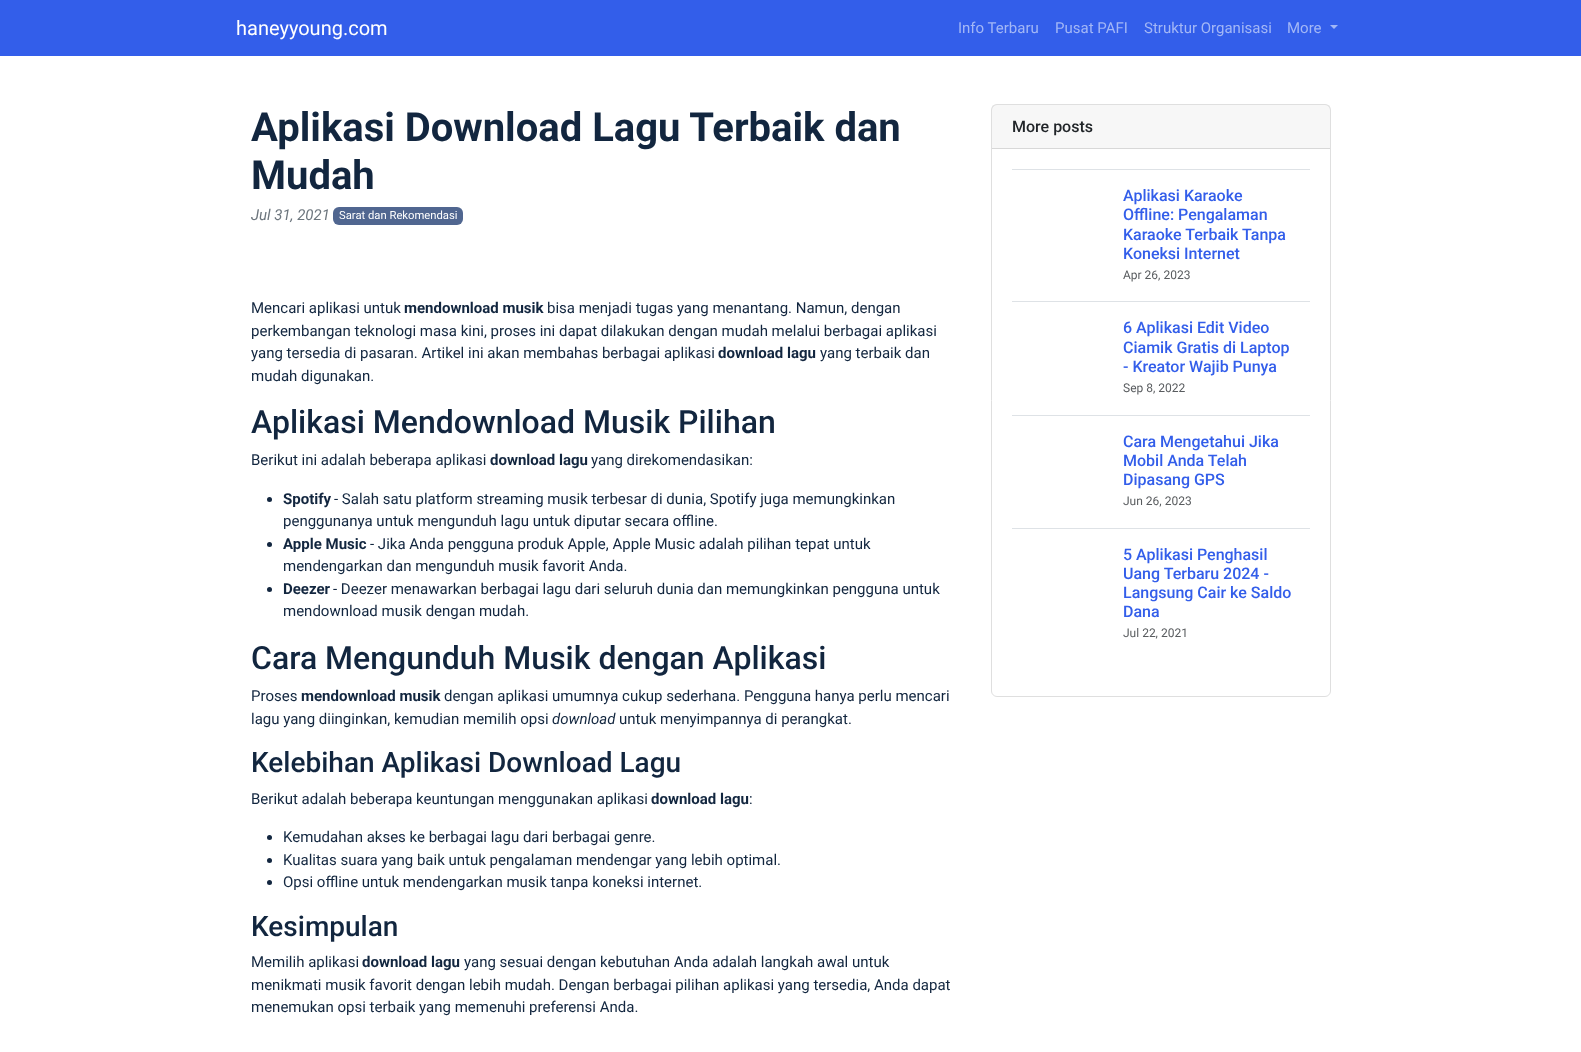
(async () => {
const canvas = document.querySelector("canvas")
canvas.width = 1581
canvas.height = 1052
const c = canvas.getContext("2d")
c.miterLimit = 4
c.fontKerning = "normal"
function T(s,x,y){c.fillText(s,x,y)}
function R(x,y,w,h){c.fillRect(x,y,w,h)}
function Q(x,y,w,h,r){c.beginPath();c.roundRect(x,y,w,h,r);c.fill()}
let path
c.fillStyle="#fff"
R(0,0,1581,1052)
c.fillStyle="#335eea"
R(0,0,1581,56)
c.font="20px Roboto"
c.fillStyle="#fff"
T("haneyyoung.com",236,35)
c.font="15px Roboto"
c.fillStyle="#a3b7f6"
T("Info Terbaru",958,33)
T("Pusat PAFI",1055,33)
T("Struktur Organisasi",1144,33)
T("More",1287,33)
path = new Path2D("M1330 25h8l-4 4z")
c.fill(path)
c.font="bold 40px Roboto"
c.fillStyle="#12263f"
T("Aplikasi Download Lagu Terbaik dan",251,141)
T("Mudah",251,189)
c.font="italic 15px Roboto"
c.fillStyle="#6c757d"
T("Jul 31, 2021",251,220)
c.fillStyle="#506690"
Q(333,207,130,18,6)
c.font="11.25px Roboto"
c.fillStyle="#fff"
T("Sarat dan Rekomendasi",339,219)
c.font="15px Roboto"
c.fillStyle="#12263f"
T("Mencari aplikasi untuk",251,313)
c.font="bold 15px Roboto"
T("mendownload musik",404,313)
c.font="15px Roboto"
T("bisa menjadi tugas yang menantang. Namun, dengan",547,313)
T("perkembangan teknologi masa kini, proses ini dapat dilakukan dengan mudah melalui berbagai aplikasi",251,336)
T("yang tersedia di pasaran. Artikel ini akan membahas berbagai aplikasi",251,358)
c.font="bold 15px Roboto"
T("download lagu",718,358)
c.font="15px Roboto"
T("yang terbaik dan",820,358)
T("mudah digunakan.",251,381)
c.font="500 32px Roboto"
T("Aplikasi Mendownload Musik Pilihan",251,433)
c.font="15px Roboto"
T("Berikut ini adalah beberapa aplikasi",251,465)
c.font="bold 15px Roboto"
T("download lagu",490,465)
c.font="15px Roboto"
T("yang direkomendasikan:",591,465)
c.beginPath()
c.arc(269.5,499.5,2.5,0,7)
c.fill()
c.font="bold 15px Roboto"
T("Spotify",283,504)
c.font="15px Roboto"
T("- Salah satu platform streaming musik terbesar di dunia, Spotify juga memungkinkan",334,504)
T("penggunanya untuk mengunduh lagu untuk diputar secara offline.",283,526)
c.beginPath()
c.arc(269.5,544.5,2.5,0,7)
c.fill()
c.font="bold 15px Roboto"
T("Apple Music",283,549)
c.font="15px Roboto"
T("- Jika Anda pengguna produk Apple, Apple Music adalah pilihan tepat untuk",370,549)
T("mendengarkan dan mengunduh musik favorit Anda.",283,571)
c.beginPath()
c.arc(269.5,589.5,2.5,0,7)
c.fill()
c.font="bold 15px Roboto"
T("Deezer",283,594)
c.font="15px Roboto"
T("- Deezer menawarkan berbagai lagu dari seluruh dunia dan memungkinkan pengguna untuk",333,594)
T("mendownload musik dengan mudah.",283,616)
c.font="500 32px Roboto"
T("Cara Mengunduh Musik dengan Aplikasi",251,669)
c.font="15px Roboto"
T("Proses",251,701)
c.font="bold 15px Roboto"
T("mendownload musik",301,701)
c.font="15px Roboto"
T("dengan aplikasi umumnya cukup sederhana. Pengguna hanya perlu mencari",444,701)
T("lagu yang diinginkan, kemudian memilih opsi",251,724)
c.font="italic 15px Roboto"
T("download",552,724)
c.font="15px Roboto"
T("untuk menyimpannya di perangkat.",619,724)
c.font="500 28px Roboto"
T("Kelebihan Aplikasi Download Lagu",251,772)
c.font="15px Roboto"
T("Berikut adalah beberapa keuntungan menggunakan aplikasi",251,804)
c.font="bold 15px Roboto"
T("download lagu",651,804)
c.font="15px Roboto"
T(":",749,804)
c.beginPath()
c.arc(269.5,837.5,2.5,0,7)
c.fill()
T("Kemudahan akses ke berbagai lagu dari berbagai genre.",283,842)
c.beginPath()
c.arc(269.5,860.5,2.5,0,7)
c.fill()
T("Kualitas suara yang baik untuk pengalaman mendengar yang lebih optimal.",283,865)
c.beginPath()
c.arc(269.5,882.5,2.5,0,7)
c.fill()
T("Opsi offline untuk mendengarkan musik tanpa koneksi internet.",283,887)
c.font="500 28px Roboto"
T("Kesimpulan",251,936)
c.font="15px Roboto"
T("Memilih aplikasi",251,967)
c.font="bold 15px Roboto"
T("download lagu",362,967)
c.font="15px Roboto"
T("yang sesuai dengan kebutuhan Anda adalah langkah awal untuk",464,967)
T("menikmati musik favorit dengan lebih mudah. Dengan berbagai pilihan aplikasi yang tersedia, Anda dapat",251,990)
T("menemukan opsi terbaik yang memenuhi preferensi Anda.",251,1012)
c.beginPath()
c.roundRect(991.5,104.5,339,592,5.5)
c.strokeStyle="#dfdfdf"
c.stroke()
c.fillStyle="#00000008"
R(992,105,338,43)
c.fillStyle="#d8d8d8"
R(992,148,338,1)
c.font="500 16px Roboto"
c.fillStyle="#212529"
T("More posts",1012,132)
c.fillStyle="#dee2e6"
R(1012,169,298,1)
c.fillStyle="#335eea"
T("Aplikasi Karaoke",1123,201)
T("Offline: Pengalaman",1123,220)
T("Karaoke Terbaik Tanpa",1123,240)
T("Koneksi Internet",1123,259)
c.font="12px Roboto"
c.fillStyle="#595c5f"
T("Apr 26, 2023",1123,279)
c.fillStyle="#dee2e6"
R(1012,301,298,1)
c.font="500 16px Roboto"
c.fillStyle="#335eea"
T("6 Aplikasi Edit Video",1123,333)
T("Ciamik Gratis di Laptop",1123,353)
T("- Kreator Wajib Punya",1123,372)
c.font="12px Roboto"
c.fillStyle="#595c5f"
T("Sep 8, 2022",1123,392)
c.fillStyle="#dee2e6"
R(1012,415,298,1)
c.font="500 16px Roboto"
c.fillStyle="#335eea"
T("Cara Mengetahui Jika",1123,447)
T("Mobil Anda Telah",1123,466)
T("Dipasang GPS",1123,485)
c.font="12px Roboto"
c.fillStyle="#595c5f"
T("Jun 26, 2023",1123,505)
c.fillStyle="#dee2e6"
R(1012,528,298,1)
c.font="500 16px Roboto"
c.fillStyle="#335eea"
T("5 Aplikasi Penghasil",1123,560)
T("Uang Terbaru 2024 -",1123,579)
T("Langsung Cair ke Saldo",1123,598)
T("Dana",1123,617)
c.font="12px Roboto"
c.fillStyle="#595c5f"
T("Jul 22, 2021",1123,637)
})()
